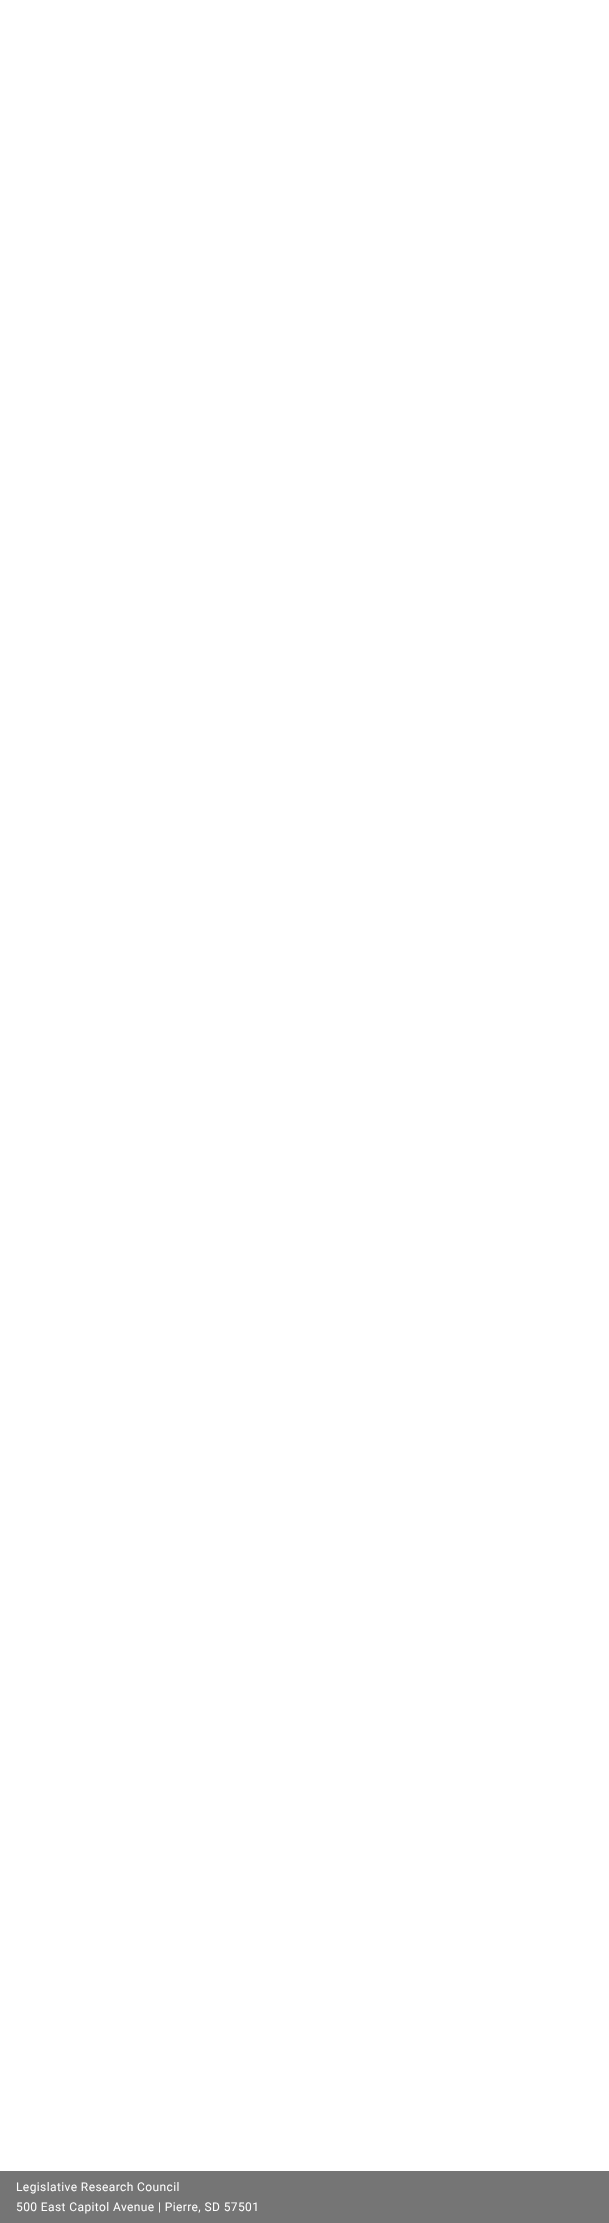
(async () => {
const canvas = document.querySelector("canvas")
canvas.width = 609
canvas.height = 2223
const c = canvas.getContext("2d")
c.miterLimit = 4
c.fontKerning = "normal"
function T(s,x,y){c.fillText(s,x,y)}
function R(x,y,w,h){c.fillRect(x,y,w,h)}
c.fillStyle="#fff"
R(0,0,609,2223)
c.fillStyle="#757575"
R(0,2171,609,52)
c.letterSpacing="0.4px"
c.font="12px Roboto"
c.fillStyle="#fff"
T("Legislative Research Council",16,2191)
T("500 East Capitol Avenue | Pierre, SD 57501",16,2211)
})()
